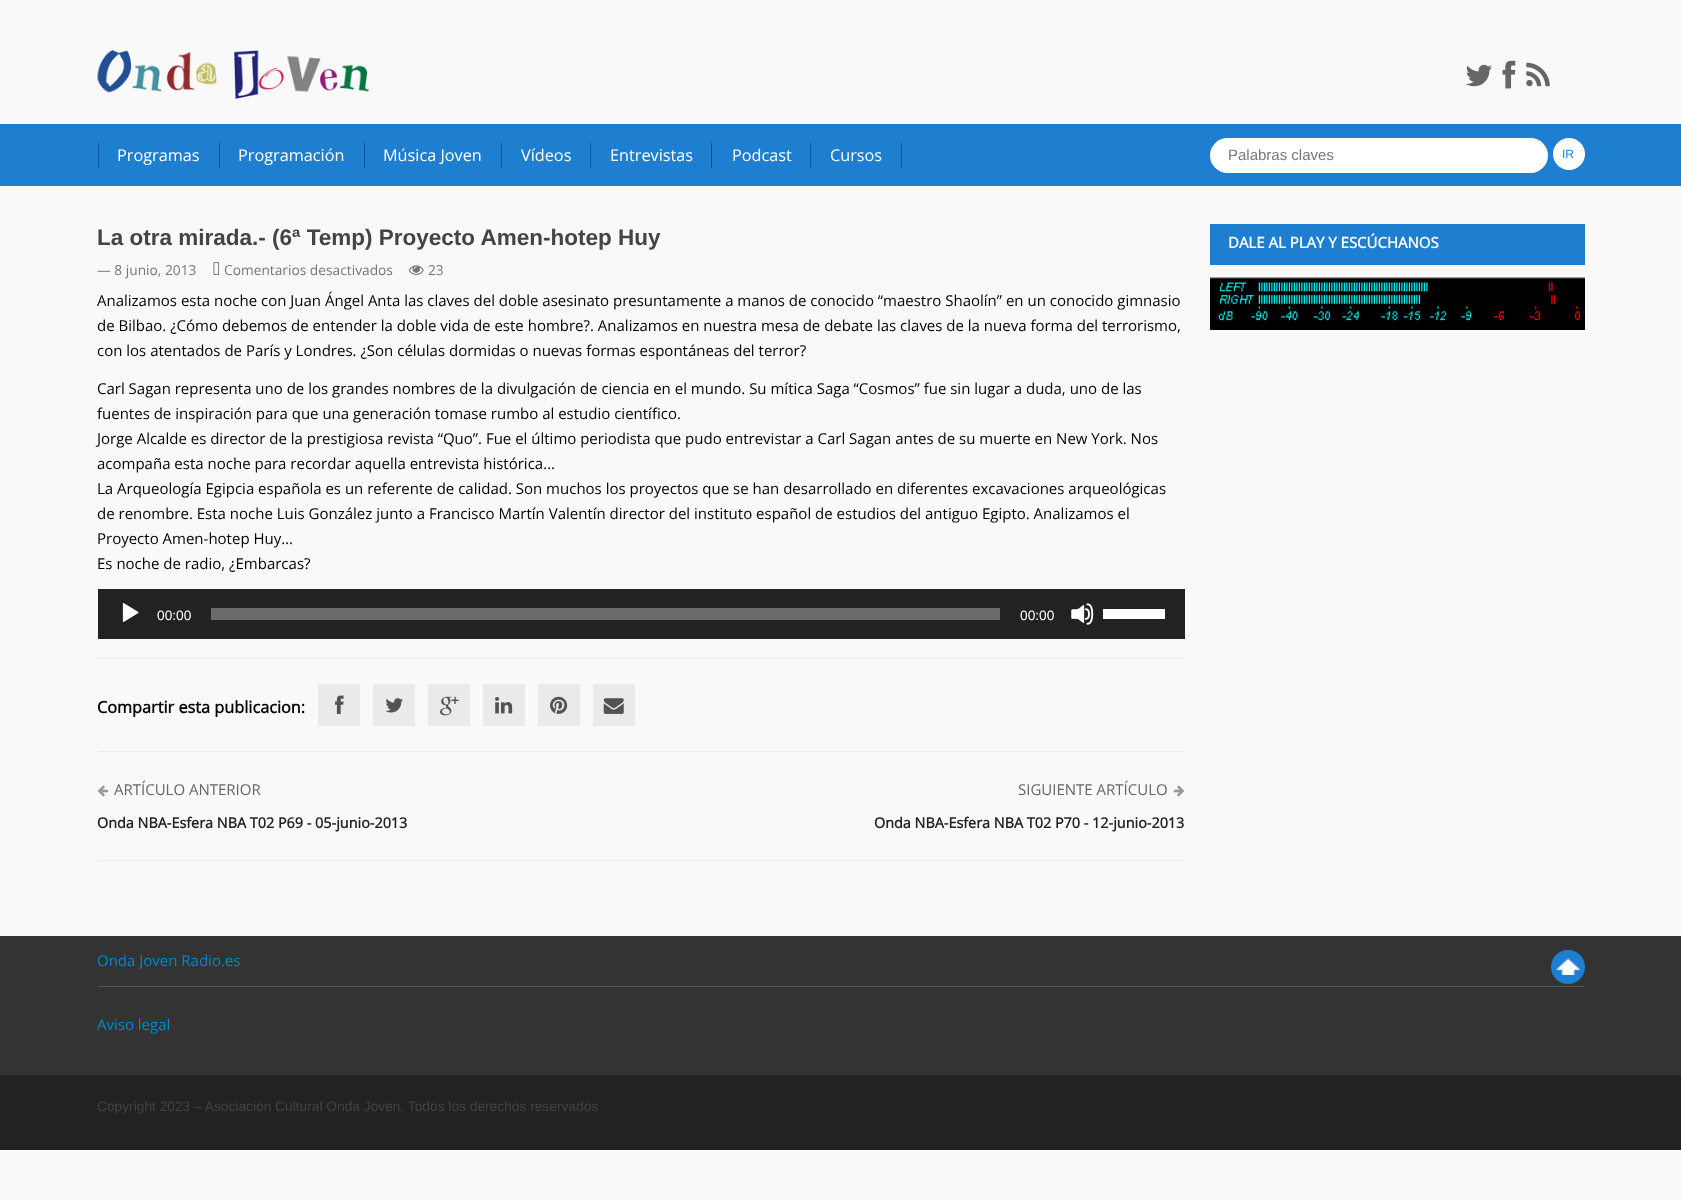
(async () => {
const canvas = document.querySelector("canvas")
canvas.width = 1681
canvas.height = 1200
const c = canvas.getContext("2d")
c.miterLimit = 4
c.fontKerning = "normal"
function T(s,x,y){c.fillText(s,x,y)}
function R(x,y,w,h){c.fillRect(x,y,w,h)}
function Q(x,y,w,h,r){c.beginPath();c.roundRect(x,y,w,h,r);c.fill()}
async function I(src,x,y,w,h){const img=new Image();img.src=src;await img.decode();c.drawImage(img,x,y,w,h)}
c.fillStyle="#f9f9f9"
R(0,0,1681,1200)
await I("1.png",97,50,272,49)
await I("2.png",1466,64,26,23)
await I("3.png",1502,60,14,29)
await I("4.png",1526,62,24,25)
c.fillStyle="#1e7fd1"
R(0,124,1681,62)
c.fillStyle="#02569e"
R(219,143,1,25)
R(98,143,1,25)
c.font="16.25px Open Sans"
c.fillStyle="#fff"
T("Programas",117,161)
c.fillStyle="#02569e"
R(364,143,1,25)
c.fillStyle="#fff"
T("Programación",238,161)
c.fillStyle="#02569e"
R(501,143,1,25)
c.fillStyle="#fff"
T("Música Joven",383,161)
c.fillStyle="#02569e"
R(590,143,1,25)
c.fillStyle="#fff"
T("Vídeos",521,161)
c.fillStyle="#02569e"
R(711,143,1,25)
c.fillStyle="#fff"
T("Entrevistas",610,161)
c.fillStyle="#02569e"
R(810,143,1,25)
c.fillStyle="#fff"
T("Podcast",732,161)
c.fillStyle="#02569e"
R(901,143,1,25)
c.fillStyle="#fff"
T("Cursos",830,161)
Q(1210,138,338,35,17.5)
c.font="15px Liberation Sans"
c.fillStyle="#777"
T("Palabras claves",1228,160)
c.fillStyle="#fff"
c.beginPath()
c.arc(1569,154,16,0,7)
c.fill()
c.font="12px Liberation Sans"
c.fillStyle="#1e7fd1"
T("IR",1562,158)
c.font="bold 22.5px Liberation Sans"
c.fillStyle="#444"
T("La otra mirada.- (6ª Temp) Proyecto Amen-hotep Huy",97,245)
c.font="13.75px Open Sans"
c.fillStyle="#777"
T("— 8 junio, 2013",97,275)
await I("5.png",213,262,7,13)
T("Comentarios desactivados",224,275)
await I("6.png",408,265,16,10)
T("23",428,275)
c.font="15px Open Sans"
c.fillStyle="#000"
T("Analizamos esta noche con Juan Ángel Anta las claves del doble asesinato presuntamente a manos de conocido “maestro Shaolín” en un conocido gimnasio",97,306)
T("de Bilbao. ¿Cómo debemos de entender la doble vida de este hombre?. Analizamos en nuestra mesa de debate las claves de la nueva forma del terrorismo,",97,331)
T("con los atentados de París y Londres. ¿Son células dormidas o nuevas formas espontáneas del terror?",97,356)
T("Carl Sagan representa uno de los grandes nombres de la divulgación de ciencia en el mundo. Su mítica Saga “Cosmos” fue sin lugar a duda, uno de las",97,394)
T("fuentes de inspiración para que una generación tomase rumbo al estudio científico.",97,419)
T("Jorge Alcalde es director de la prestigiosa revista “Quo”. Fue el último periodista que pudo entrevistar a Carl Sagan antes de su muerte en New York. Nos",97,444)
T("acompaña esta noche para recordar aquella entrevista histórica…",97,469)
T("La Arqueología Egipcia española es un referente de calidad. Son muchos los proyectos que se han desarrollado en diferentes excavaciones arqueológicas",97,494)
T("de renombre. Esta noche Luis González junto a Francisco Martín Valentín director del instituto español de estudios del antiguo Egipto. Analizamos el",97,519)
T("Proyecto Amen-hotep Huy…",97,544)
T("Es noche de radio, ¿Embarcas?",97,569)
c.fillStyle="#222"
R(98,589,1087,50)
await I("7.png",122,603,17,19)
c.font="13.75px Liberation Sans"
c.fillStyle="#fff"
T("00:00",157,620)
c.fillStyle="#6b6b6b"
R(211,608,789,12)
c.fillStyle="#fff"
T("00:00",1020,620)
await I("8.png",1071,603,23,22)
R(1103,609,62,10)
c.fillStyle="#eaeaea"
R(98,658,1087,1)
R(98,751,1087,1)
c.font="bold 16.25px Open Sans"
c.fillStyle="#000"
T("Compartir esta publicacion:",97,713)
c.fillStyle="#eaeaea"
R(318,684,42,42)
await I("9.png",335,695,9,19)
R(373,684,42,42)
await I("10.png",385,698,18,15)
R(428,684,42,42)
await I("11.png",440,696,19,20)
R(483,684,42,42)
await I("12.png",495,697,18,17)
R(538,684,42,42)
await I("13.png",550,696,18,18)
R(593,684,42,42)
await I("14.png",603,698,21,16)
R(98,860,1087,1)
await I("15.png",98,785,11,12)
c.font="15px Open Sans"
c.fillStyle="#666"
T("ARTÍCULO ANTERIOR",114,795)
c.font="bold 14.4px Open Sans"
c.fillStyle="#222"
T("Onda NBA-Esfera NBA T02 P69 - 05-junio-2013",97,828)
c.font="15px Open Sans"
c.fillStyle="#666"
T("SIGUIENTE ARTÍCULO",1018,795)
await I("16.png",1173,785,11,12)
c.font="bold 14.4px Open Sans"
c.fillStyle="#222"
T("Onda NBA-Esfera NBA T02 P70 - 12-junio-2013",874,828)
c.fillStyle="#1e7fd1"
R(1210,224,375,41)
c.font="bold 15px Open Sans"
c.fillStyle="#fff"
T("DALE AL PLAY Y ESCÚCHANOS",1228,248)
await I("17.png",1210,277,375,53)
c.fillStyle="#333"
R(0,936,1681,139)
c.fillStyle="#555"
R(98,986,1487,1)
c.font="15px Open Sans"
c.fillStyle="#08c"
T("Onda Joven Radio.es",97,966)
c.fillStyle="#1e7fd1"
c.beginPath()
c.arc(1568,967,17,0,7)
c.fill()
await I("18.png",1556,958,24,17)
c.fillStyle="#08c"
T("Aviso legal",97,1030)
c.fillStyle="#222"
R(0,1075,1681,75)
c.font="13.75px Liberation Sans"
c.fillStyle="#444"
T("Copyright 2023 – Asociación Cultural Onda Joven. Todos los derechos reservados",97,1111)
})()
